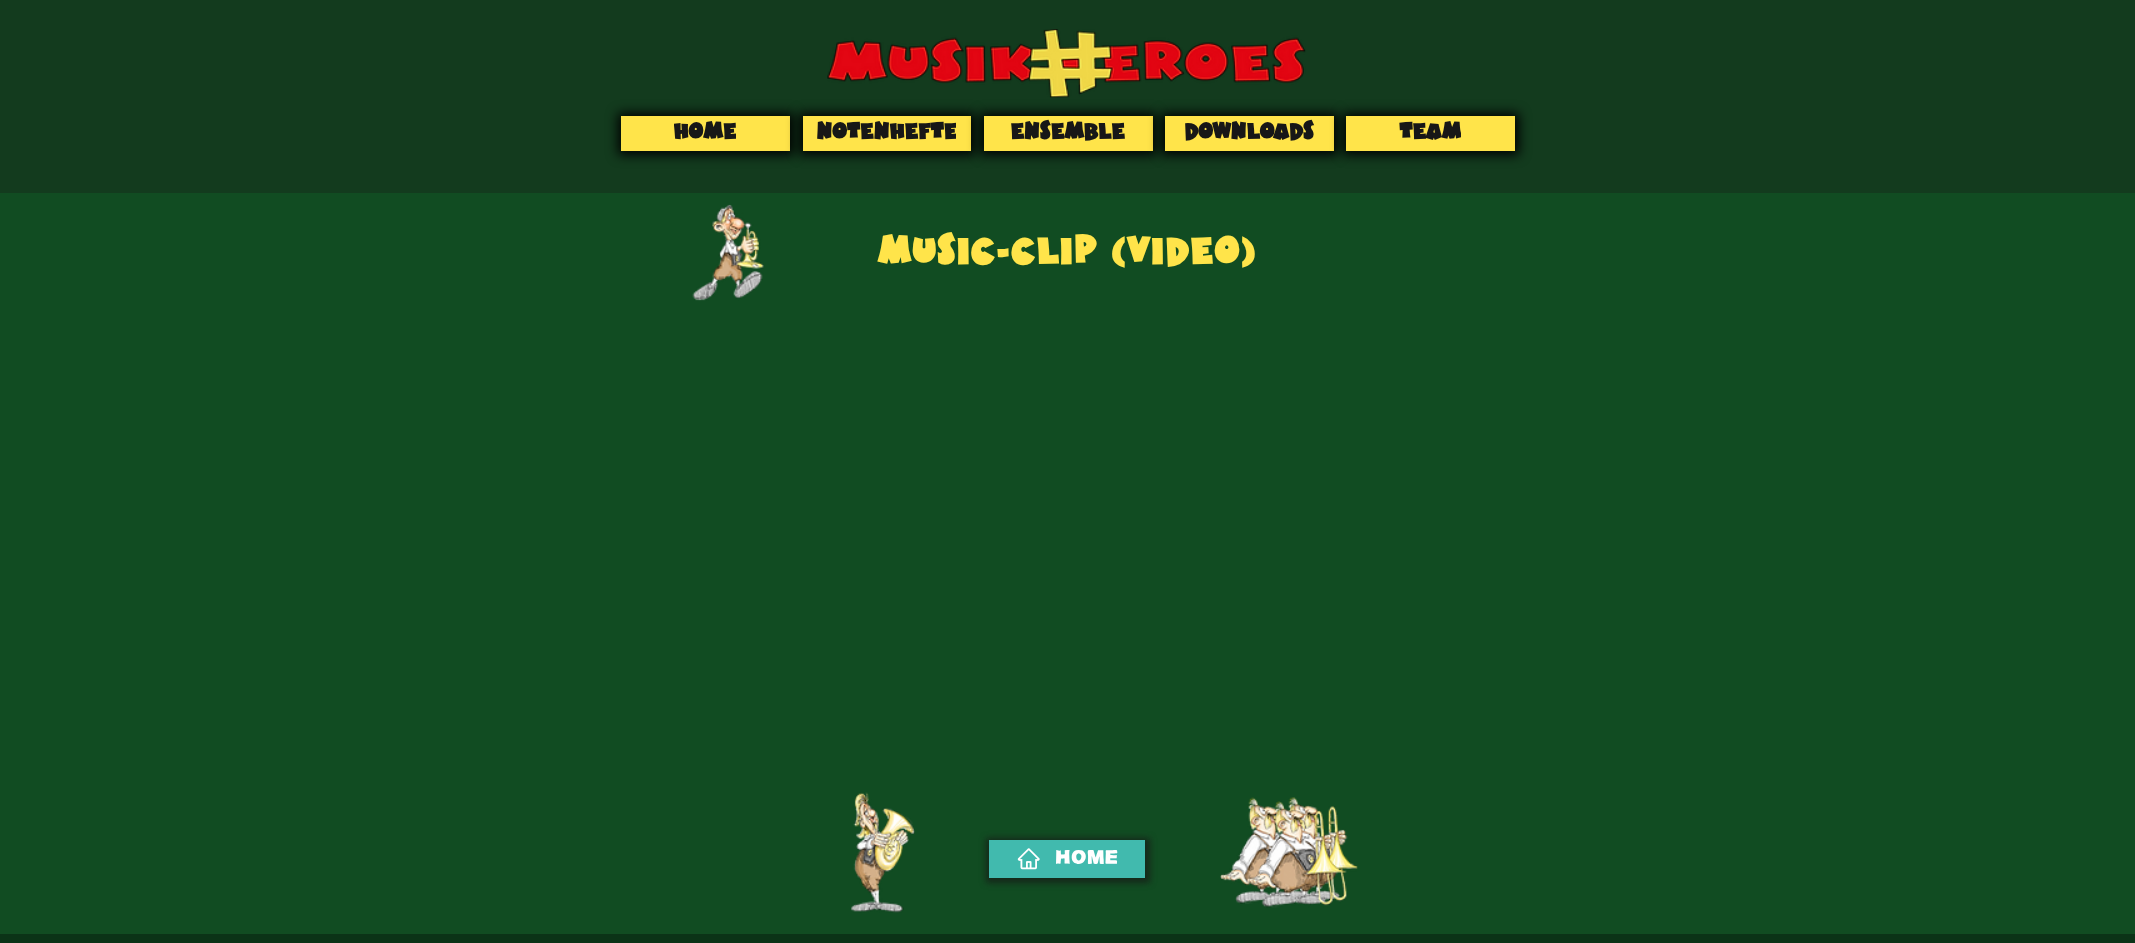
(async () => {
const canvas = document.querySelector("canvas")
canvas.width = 2135
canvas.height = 943
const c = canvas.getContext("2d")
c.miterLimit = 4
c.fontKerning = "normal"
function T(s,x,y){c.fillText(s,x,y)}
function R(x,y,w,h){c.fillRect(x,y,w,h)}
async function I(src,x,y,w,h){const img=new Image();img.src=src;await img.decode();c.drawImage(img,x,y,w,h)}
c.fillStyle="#114c22"
R(0,0,2135,943)
c.fillStyle="#133b1e"
R(0,0,2135,193)
await I("1.png",827,29,479,69)
c.fillStyle="#000"
c.filter="blur(6px)"
c.beginPath()
c.rect(618,113,176,42)
c.fill()
c.filter="none"
c.fillStyle="#ffe44a"
R(621,116,169,35)
c.save()
c.beginPath()
c.rect(674,118,62,32)
c.clip()
c.letterSpacing="-1.1px"
c.font="22.5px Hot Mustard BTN"
c.fillStyle="#171717"
T("HOME",673,139)
c.restore()
c.fillStyle="#000"
c.filter="blur(6px)"
c.beginPath()
c.rect(799,113,176,42)
c.fill()
c.filter="none"
c.fillStyle="#ffe44a"
R(803,116,168,35)
c.save()
c.beginPath()
c.rect(816,118,140,32)
c.clip()
c.letterSpacing="-1.1px"
c.font="22.5px Hot Mustard BTN"
c.fillStyle="#171717"
T("NOTENHEFTE",816,139)
c.restore()
c.fillStyle="#000"
c.filter="blur(6px)"
c.beginPath()
c.rect(980,113,176,42)
c.fill()
c.filter="none"
c.fillStyle="#ffe44a"
R(984,116,169,35)
c.letterSpacing="-1.1px"
c.font="22.5px Hot Mustard BTN"
c.fillStyle="#171717"
T("ENSEMBLE",1010,139)
c.fillStyle="#000"
c.filter="blur(6px)"
c.beginPath()
c.rect(1161,113,177,42)
c.fill()
c.filter="none"
c.fillStyle="#ffe44a"
R(1165,116,169,35)
c.fillStyle="#171717"
T("DOWNLOADS",1184,139)
c.fillStyle="#000"
c.filter="blur(6px)"
c.beginPath()
c.rect(1343,113,176,42)
c.fill()
c.filter="none"
c.fillStyle="#ffe44a"
R(1346,116,169,35)
c.save()
c.beginPath()
c.rect(1399,118,62,32)
c.clip()
c.fillStyle="#171717"
T("TEAM",1399,139)
c.restore()
await I("2.png",692,204,72,97)
c.letterSpacing="0px"
c.font="37.5px Hot Mustard BTN"
T("MUSIC-CLIP (Video)",877,264)
await I("3.png",851,792,64,121)
c.fillStyle="#171717ab"
c.filter="blur(3px)"
c.beginPath()
c.rect(986,838,164,45)
c.fill()
c.filter="none"
c.fillStyle="#41baae"
R(989,840,156,38)
await I("4.png",1017,848,23,22)
c.font="20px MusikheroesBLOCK"
c.fillStyle="#fff"
T("HOME",1055,864)
await I("5.png",1220,797,138,111)
c.fillStyle="#0b3317"
R(0,934,2135,9)
})()
